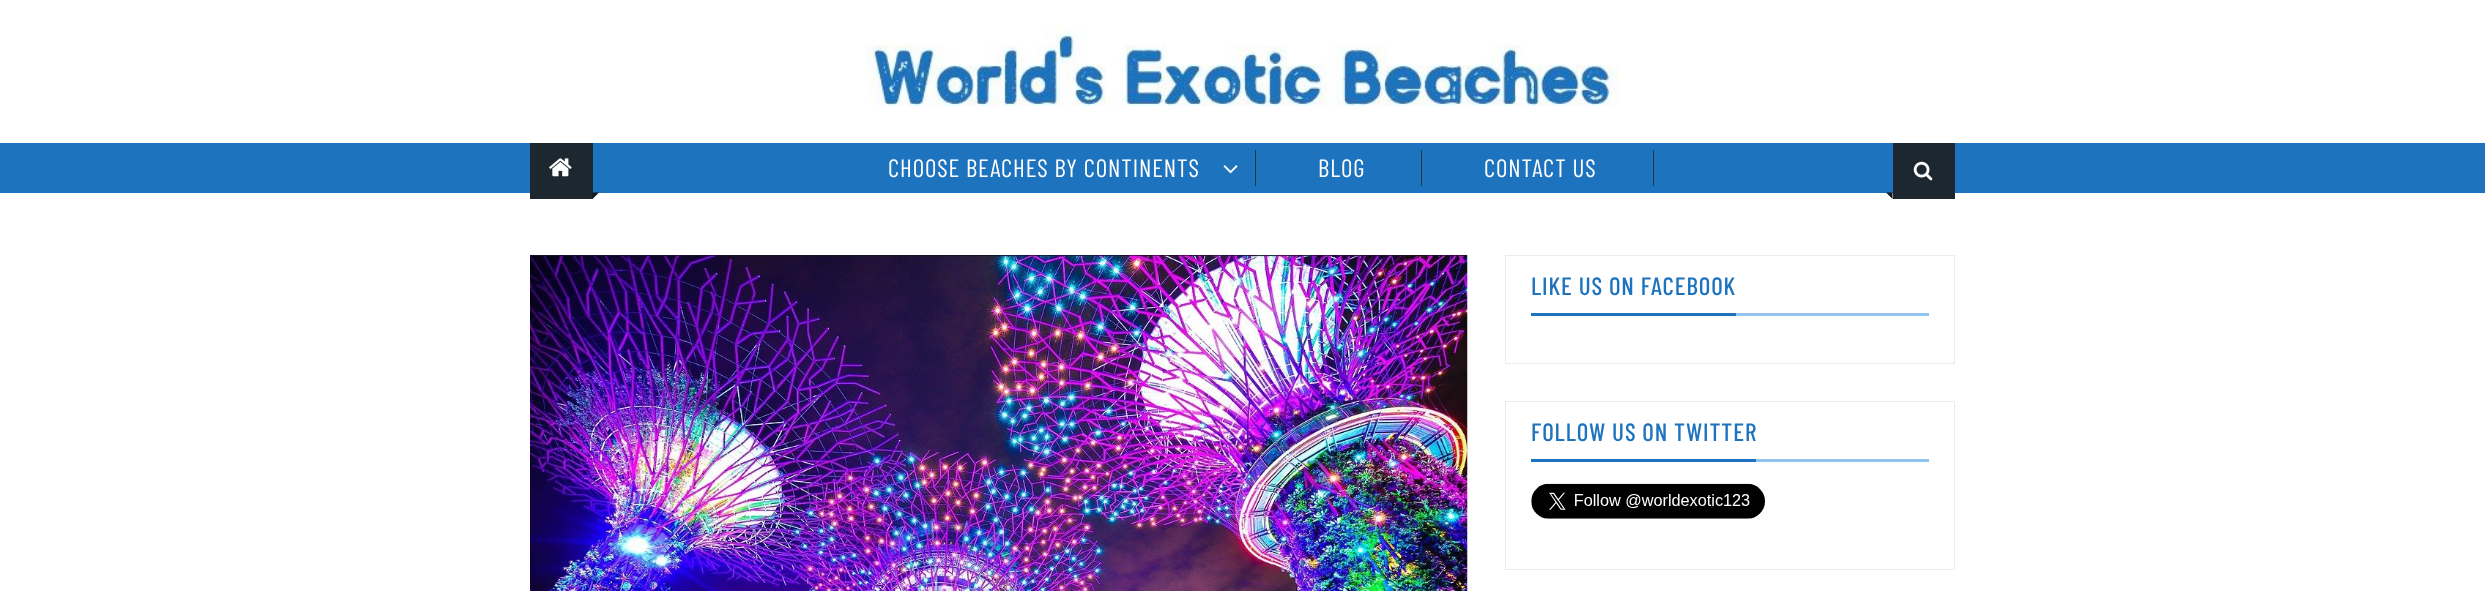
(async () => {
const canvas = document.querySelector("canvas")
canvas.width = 2485
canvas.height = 591
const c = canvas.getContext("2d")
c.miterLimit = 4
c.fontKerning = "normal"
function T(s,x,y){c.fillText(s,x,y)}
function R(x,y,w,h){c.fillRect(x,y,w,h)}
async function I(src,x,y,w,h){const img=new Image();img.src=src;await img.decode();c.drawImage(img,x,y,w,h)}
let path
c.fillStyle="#fff"
R(0,0,2485,591)
await I("1.png",866,25,753,82)
c.fillStyle="#1e73be"
R(0,143,2485,50)
c.fillStyle="#1d2730"
R(530,143,63,56)
await I("2.png",549,158,23,19)
c.fillStyle="#121920"
path = new Path2D("M592.5 199v-6.5h6.5z")
c.fill(path)
c.fillStyle="#283540"
R(1255,150,1,36)
c.letterSpacing="0.9px"
c.font="25px Barlow Condensed"
c.fillStyle="#fff"
T("CHOOSE BEACHES BY CONTINENTS",888,177)
await I("3.png",1223,165,15,9)
c.fillStyle="#283540"
R(1421,150,1,36)
c.fillStyle="#fff"
T("BLOG",1318,177)
c.fillStyle="#283540"
R(1653,150,1,36)
c.fillStyle="#fff"
T("CONTACT US",1484,177)
c.fillStyle="#1d2730"
R(1893,143,62,56)
await I("4.png",1913,161,20,20)
c.fillStyle="#121920"
path = new Path2D("M1886 192.5h6.5v6.5z")
c.fill(path)
await I("5.png",530,255,938,336)
c.strokeStyle="#eaebed"
c.strokeRect(1505.5,255.5,449,108)
c.fillStyle="#92c4ee"
R(1736,313,193,3)
c.font="500 25px Barlow Condensed"
c.fillStyle="#1e73be"
T("LIKE US ON FACEBOOK",1531,295)
R(1531,313,205,3)
c.strokeRect(1505.5,401.5,449,168)
c.fillStyle="#92c4ee"
R(1756,459,173,3)
c.fillStyle="#1e73be"
T("FOLLOW US ON TWITTER",1531,441)
R(1531,459,225,3)
await I("6.png",1531,483,235,36)
})()
